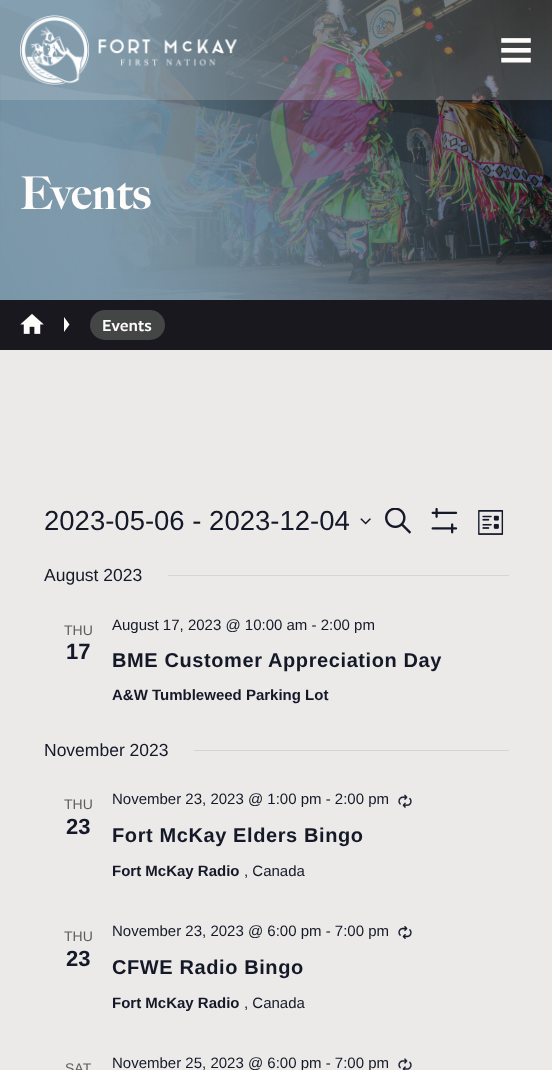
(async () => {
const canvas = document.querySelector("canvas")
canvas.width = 552
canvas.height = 1070
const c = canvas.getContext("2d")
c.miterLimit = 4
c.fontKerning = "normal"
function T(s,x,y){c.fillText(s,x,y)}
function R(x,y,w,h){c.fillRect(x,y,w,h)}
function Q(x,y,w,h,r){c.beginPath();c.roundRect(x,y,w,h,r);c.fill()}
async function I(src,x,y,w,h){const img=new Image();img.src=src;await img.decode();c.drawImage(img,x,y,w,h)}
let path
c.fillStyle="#18181e"
R(0,0,552,1070)
await I("3.png",0,0,552,300)
await I("4.png",0,7,552,293)
c.fillStyle="#ecebea33"
R(0,0,552,100)
await I("1.png",20,15,217,70)
await I("2.png",501,38,30,25)
c.letterSpacing="0.6px"
c.font="900 45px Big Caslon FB"
c.fillStyle="#fefcfa"
T("Events",20,209)
await I("5.png",20,314,24,20)
path = new Path2D("M69.5 324.5l-5.5 7.5v-15z")
c.fill(path)
c.fillStyle="#444545"
Q(90,310,75,30,15)
c.letterSpacing="0px"
c.font="600 17.5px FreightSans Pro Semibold"
c.fillStyle="#fefcfa"
T("Events",102,331)
c.fillStyle="#ebeae9"
R(0,350,552,720)
c.font="27.5px Liberation Sans"
c.fillStyle="#141827"
T("2023-05-06 - 2023-12-04",44,530)
await I("6.png",360,518,11,7)
await I("7.png",385,508,26,26)
await I("8.png",431,508,27,26)
await I("9.png",478,510,26,25)
c.font="17.5px Liberation Sans"
T("August 2023",44,581)
c.fillStyle="#d5d5d5"
R(168,575,341,1)
c.font="14px Liberation Sans"
c.fillStyle="#5d5d5d"
T("THU",64,635)
c.font="bold 22px Liberation Sans"
c.fillStyle="#141827"
T("17",66,659)
c.font="15px Liberation Sans"
T("August 17, 2023 @ 10:00 am - 2:00 pm",112,630)
c.letterSpacing="0.6px"
c.font="bold 20px Liberation Sans"
T("BME Customer Appreciation Day",112,667)
c.letterSpacing="0px"
c.font="bold 15px Liberation Sans"
T("A&W Tumbleweed Parking Lot",112,700)
c.font="17.5px Liberation Sans"
T("November 2023",44,756)
c.fillStyle="#d5d5d5"
R(194,750,315,1)
c.font="14px Liberation Sans"
c.fillStyle="#5d5d5d"
T("THU",64,809)
c.font="bold 22px Liberation Sans"
c.fillStyle="#141827"
T("23",66,834)
c.font="15px Liberation Sans"
T("November 23, 2023 @ 1:00 pm - 2:00 pm",112,804)
await I("10.png",398,794,14,14)
c.letterSpacing="0.6px"
c.font="bold 20px Liberation Sans"
T("Fort McKay Elders Bingo",112,842)
c.letterSpacing="0px"
c.font="bold 15px Liberation Sans"
T("Fort McKay Radio",112,876)
c.font="15px Liberation Sans"
T(", Canada",244,876)
c.font="14px Liberation Sans"
c.fillStyle="#5d5d5d"
T("THU",64,941)
c.font="bold 22px Liberation Sans"
c.fillStyle="#141827"
T("23",66,966)
c.font="15px Liberation Sans"
T("November 23, 2023 @ 6:00 pm - 7:00 pm",112,936)
await I("11.png",398,926,14,13)
c.letterSpacing="0.6px"
c.font="bold 20px Liberation Sans"
T("CFWE Radio Bingo",112,974)
c.letterSpacing="0px"
c.font="bold 15px Liberation Sans"
T("Fort McKay Radio",112,1008)
c.font="15px Liberation Sans"
T(", Canada",244,1008)
c.font="14px Liberation Sans"
c.fillStyle="#5d5d5d"
T("SAT",65,1073)
c.font="15px Liberation Sans"
c.fillStyle="#141827"
T("November 25, 2023 @ 6:00 pm - 7:00 pm",112,1068)
await I("12.png",398,1058,14,12)
})()
